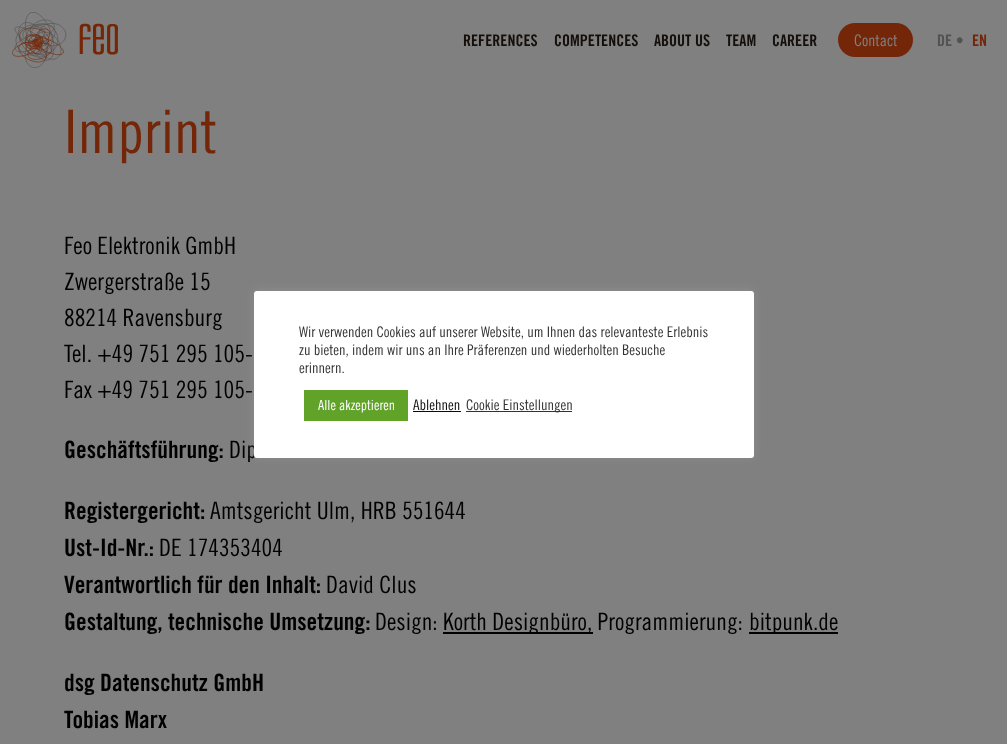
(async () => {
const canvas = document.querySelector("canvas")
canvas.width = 1007
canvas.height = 744
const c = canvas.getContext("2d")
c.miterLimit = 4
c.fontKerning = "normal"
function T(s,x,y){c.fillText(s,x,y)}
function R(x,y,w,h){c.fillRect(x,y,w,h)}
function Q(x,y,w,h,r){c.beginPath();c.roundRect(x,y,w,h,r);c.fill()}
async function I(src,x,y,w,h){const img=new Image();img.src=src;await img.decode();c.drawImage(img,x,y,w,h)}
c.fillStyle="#808080"
R(0,0,1007,744)
await I("1.png",12,12,106,56)
c.font="bold 16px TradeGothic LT"
c.fillStyle="#150f0c"
T("REFERENCES",463,46)
T("COMPETENCES",554,46)
T("ABOUT US",654,46)
T("TEAM",726,46)
T("CAREER",772,46)
c.fillStyle="#742708"
Q(838,23,75,34,17)
c.font="16px TradeGothic LT"
c.fillStyle="#808080"
T("Contact",854,46)
c.font="bold 16px TradeGothic LT"
c.fillStyle="#525252"
T("DE •",937,46)
c.fillStyle="#742708"
T("EN",972,46)
c.font="60px TradeGothic LT"
T("Imprint",64,153)
c.font="24px TradeGothic LT"
c.fillStyle="#000"
T("Feo Elektronik GmbH",64,254)
T("Zwergerstraße 15",64,290)
T("88214 Ravensburg",64,326)
T("Tel. +49 751 295 105-",64,362)
T("Fax +49 751 295 105-",64,398)
c.font="bold 24px TradeGothic LT"
T("Geschäftsführung:",64,458)
c.font="24px TradeGothic LT"
T("Dip",229,458)
c.font="bold 24px TradeGothic LT"
T("Registergericht:",64,519)
c.font="24px TradeGothic LT"
T("Amtsgericht Ulm, HRB 551644",210,519)
c.font="bold 24px TradeGothic LT"
T("Ust-Id-Nr.:",64,556)
c.font="24px TradeGothic LT"
T("DE 174353404",159,556)
c.font="bold 24px TradeGothic LT"
T("Verantwortlich für den Inhalt:",64,593)
c.font="24px TradeGothic LT"
T("David Clus",326,593)
c.font="bold 24px TradeGothic LT"
T("Gestaltung, technische Umsetzung:",64,630)
c.font="24px TradeGothic LT"
T("Design:",375,630)
R(443,632,150,2)
T("Korth Designbüro, Programmierung:",443,630)
R(749,632,89,2)
T("bitpunk.de",749,630)
c.font="bold 24px TradeGothic LT"
T("dsg Datenschutz GmbH",64,691)
T("Tobias Marx",64,728)
c.fillStyle="#acabab4d"
c.filter="blur(5px)"
c.beginPath()
c.roundRect(254,290,500,167,3)
c.fill()
c.filter="none"
c.fillStyle="#fff"
Q(254,291,500,167,3)
c.font="14.7px TradeGothic LT"
c.fillStyle="#333"
T("Wir verwenden Cookies auf unserer Website, um Ihnen das relevanteste Erlebnis",299,337)
T("zu bieten, indem wir uns an Ihre Präferenzen und wiederholten Besuche",299,355)
T("erinnern.",299,373)
c.fillStyle="#61a229"
R(304,390,104,31)
c.font="14px TradeGothic LT"
c.fillStyle="#fff"
T("Alle akzeptieren",318,410)
c.font="14.7px TradeGothic LT"
c.fillStyle="#0a0a0a"
T("Ablehnen",413,410)
R(413,411,48,1)
c.fillStyle="#333"
R(466,411,106,1)
T("Cookie Einstellungen",466,410)
})()
